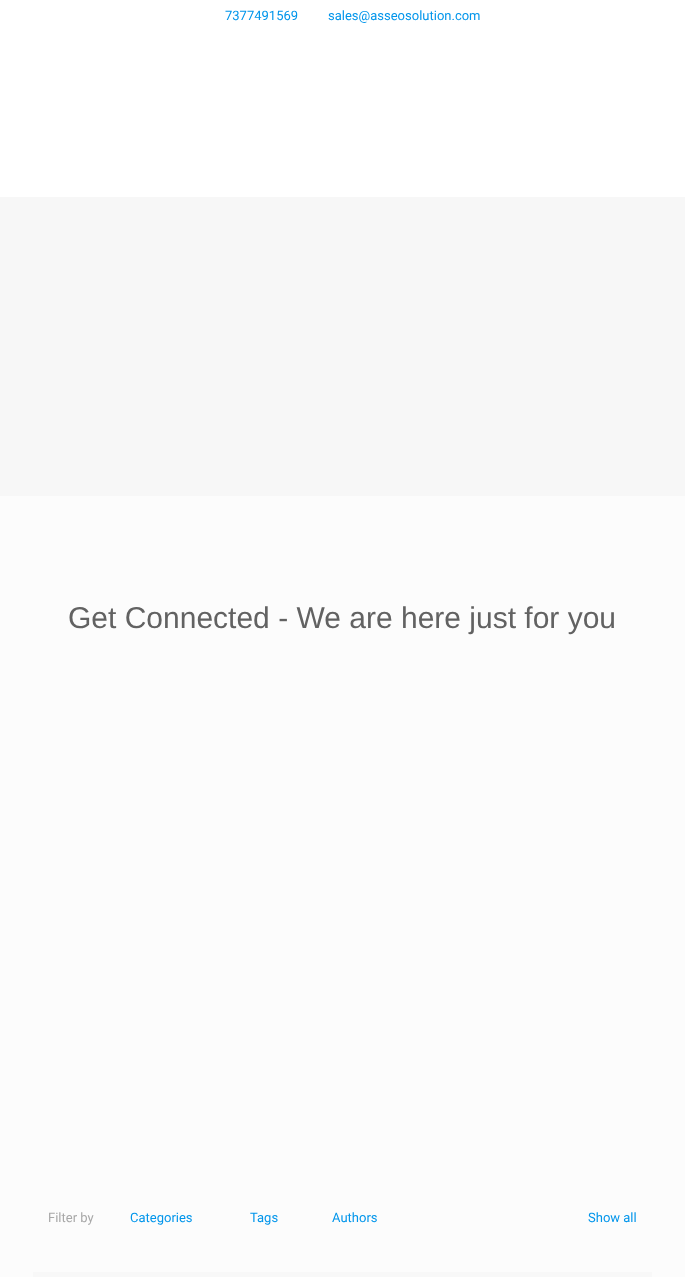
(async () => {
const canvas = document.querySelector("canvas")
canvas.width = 685
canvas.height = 1277
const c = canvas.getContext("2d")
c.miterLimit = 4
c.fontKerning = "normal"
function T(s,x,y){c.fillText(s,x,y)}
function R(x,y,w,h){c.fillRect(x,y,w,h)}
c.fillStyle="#fcfcfc"
R(0,0,685,1277)
c.fillStyle="#fff"
R(0,0,685,197)
c.font="13px Roboto"
c.fillStyle="#0095eb"
T("7377491569",225,20)
T("sales@asseosolution.com",328,20)
c.fillStyle="#f7f7f7"
R(0,197,685,299)
c.font="30px Liberation Sans"
c.fillStyle="#626262"
T("Get Connected - We are here just for you",68,628)
c.font="13px Roboto"
c.fillStyle="#a8a8a8"
T("Filter by",48,1222)
c.fillStyle="#0095eb"
T("Categories",130,1222)
T("Tags",250,1222)
T("Authors",332,1222)
T("Show all",588,1222)
c.strokeStyle="#f8f8f8"
c.lineWidth=8
c.strokeRect(37,1276,611,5)
})()
